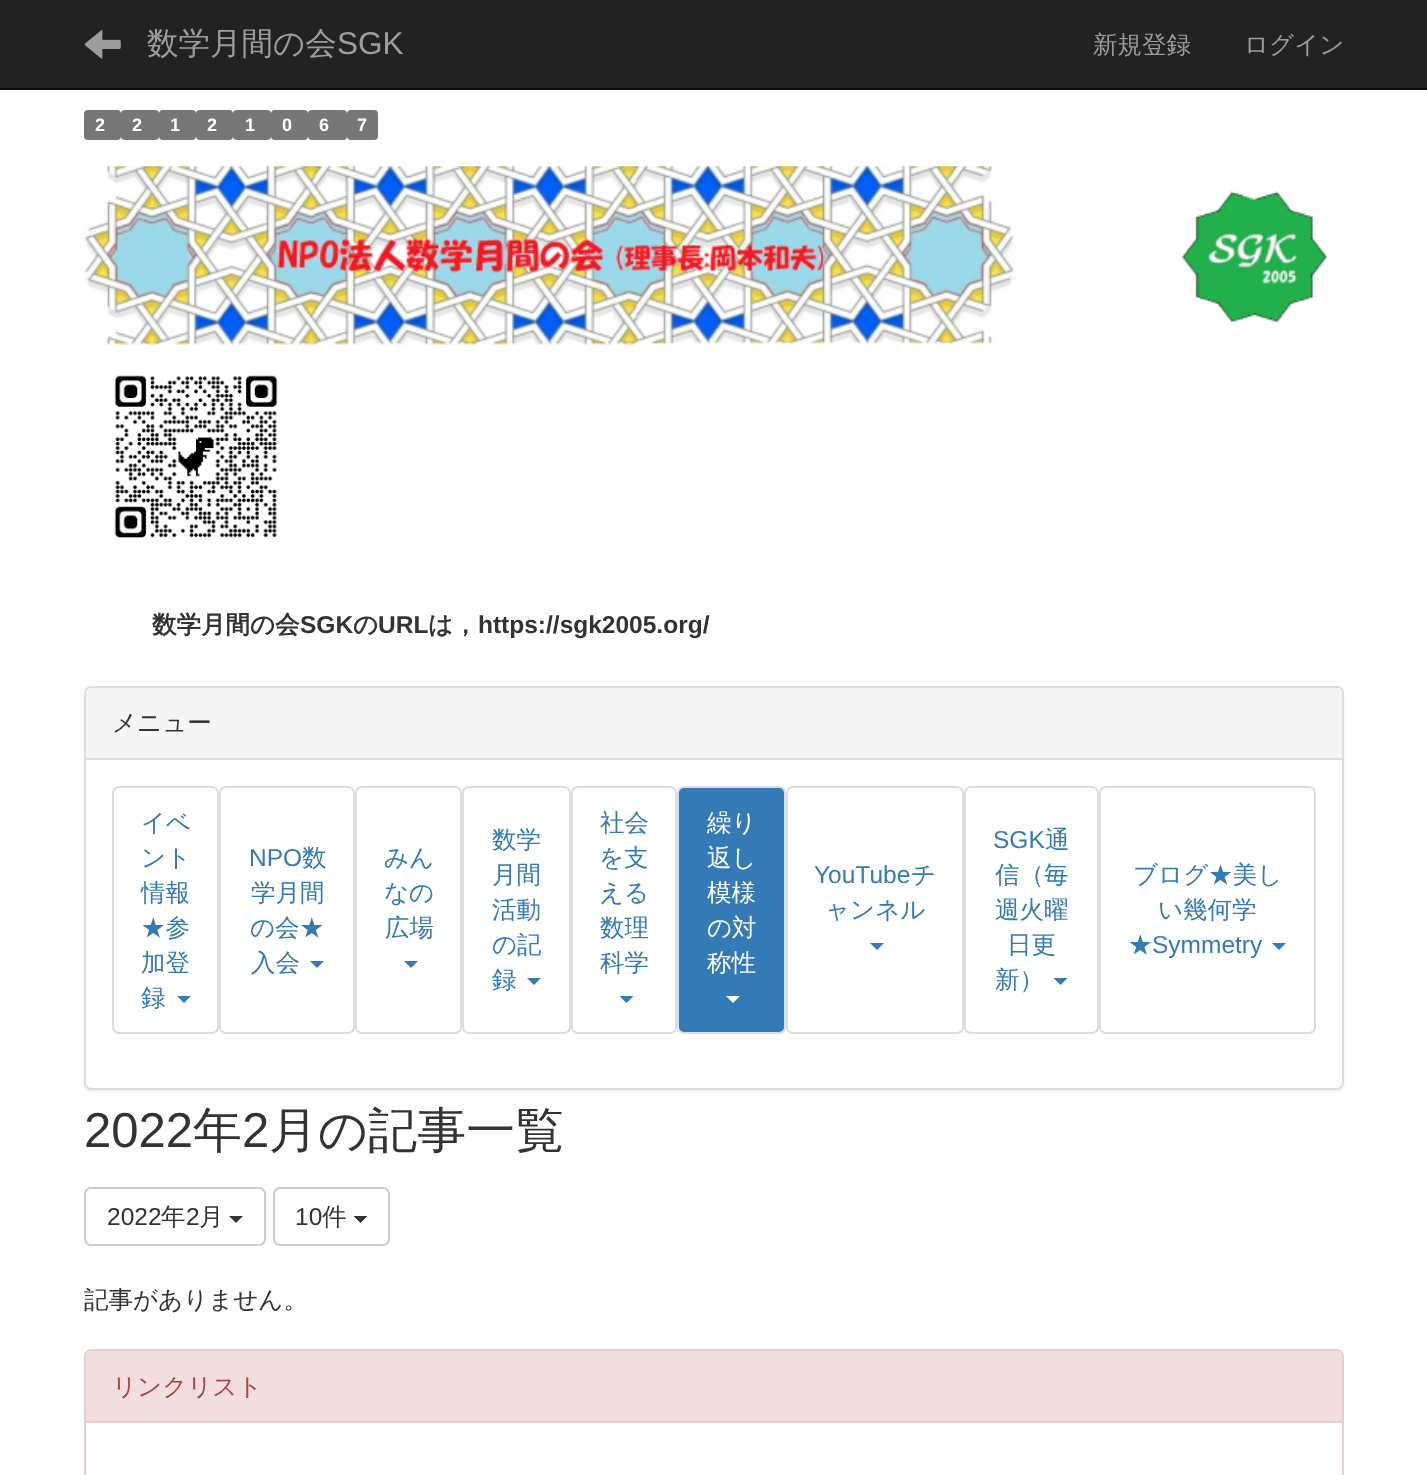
(async () => {
const canvas = document.querySelector("canvas")
canvas.width = 1427
canvas.height = 1475
const c = canvas.getContext("2d")
c.miterLimit = 4
c.fontKerning = "normal"
function T(s,x,y){c.fillText(s,x,y)}
function R(x,y,w,h){c.fillRect(x,y,w,h)}
function Q(x,y,w,h,r){c.beginPath();c.roundRect(x,y,w,h,r);c.fill()}
async function I(src,x,y,w,h){const img=new Image();img.src=src;await img.decode();c.drawImage(img,x,y,w,h)}
let path
c.fillStyle="#fff"
R(0,0,1427,1475)
c.fillStyle="#222"
R(0,0,1427,88)
c.fillStyle="#080808"
R(0,88,1427,2)
await I("1.png",84,30,37,29)
c.font="500 31.5px WenQuanYi Zen Hei"
c.fillStyle="#9d9d9d"
T("数学月間の会",147,54)
c.font="31.5px Liberation Sans"
T("SGK",337,54)
c.font="500 24.5px WenQuanYi Zen Hei"
T("新規登録",1093,53)
T("ログイン",1244,53)
c.fillStyle="#777"
Q(84,110,37,30,4)
c.font="bold 18px Liberation Sans"
c.fillStyle="#fff"
T("2",95,131)
c.fillStyle="#777"
Q(121,110,38,30,4)
c.fillStyle="#fff"
T("2",132,131)
c.fillStyle="#777"
Q(159,110,37,30,4)
c.fillStyle="#fff"
T("1",170,131)
c.fillStyle="#777"
Q(196,110,37,30,4)
c.fillStyle="#fff"
T("2",207,131)
c.fillStyle="#777"
Q(233,110,38,30,4)
c.fillStyle="#fff"
T("1",245,131)
c.fillStyle="#777"
Q(271,110,37,30,4)
c.fillStyle="#fff"
T("0",282,131)
c.fillStyle="#777"
Q(308,110,39,30,4)
c.fillStyle="#fff"
T("6",319,131)
c.fillStyle="#777"
Q(347,110,31,30,4)
c.fillStyle="#fff"
T("7",357,131)
await I("2.png",84,166,1243,179)
await I("3.png",114,375,164,164)
c.font="bold 24.5px WenQuanYi Zen Hei"
c.fillStyle="#333"
T("数学月間の会",152,633)
c.font="bold 24.5px Liberation Sans"
T("SGK",300,633)
c.font="bold 24.5px WenQuanYi Zen Hei"
T("の",353,633)
c.font="bold 24.5px Liberation Sans"
T("URL",378,633)
c.font="bold 24.5px WenQuanYi Zen Hei"
T("は，",428,633)
c.font="bold 24.5px Liberation Sans"
T("https://sgk2005.org/",478,633)
c.fillStyle="#0000000d"
c.filter="blur(1px)"
c.beginPath()
c.roundRect(84,688,1260,404,7)
c.fill()
c.filter="none"
c.fillStyle="#fff"
c.beginPath()
c.roundRect(85,687,1258,402,6)
c.fill()
c.strokeStyle="#ddd"
c.lineWidth=2
c.stroke()
c.fillStyle="#f5f5f5"
c.beginPath()
c.roundRect(86,688,1256,72,[5,5,0,0])
c.fill()
c.fillStyle="#ddd"
R(86,758,1256,2)
c.font="500 24.5px WenQuanYi Zen Hei"
c.fillStyle="#333"
T("メニュー",112,731)
c.beginPath()
c.roundRect(113,787,105,246,6)
c.stroke()
c.fillStyle="#337ab7"
T("イベ",141,831)
T("ント",141,866)
T("情報",141,901)
T("★参",141,936)
T("加登",141,971)
T("録",141,1006)
path = new Path2D("M177 996h14l-7 7z")
c.fill(path)
c.beginPath()
c.roundRect(220,787,134,246,6)
c.stroke()
c.font="24.5px Liberation Sans"
T("NPO",249,866)
c.font="500 24.5px WenQuanYi Zen Hei"
T("数",302,866)
T("学月間",251,901)
T("の会★",250,936)
T("入会",251,971)
path = new Path2D("M310 961h14l-7 7z")
c.fill(path)
c.beginPath()
c.roundRect(356,787,105,246,6)
c.stroke()
T("みん",384,866)
T("なの",384,901)
T("広場",385,936)
path = new Path2D("M404 961h14l-7 7z")
c.fill(path)
c.beginPath()
c.roundRect(463,787,107,246,6)
c.stroke()
T("数学",492,848)
T("月間",492,883)
T("活動",492,918)
T("の記",492,953)
T("録",492,988)
path = new Path2D("M527 978h14l-7 7z")
c.fill(path)
c.beginPath()
c.roundRect(572,787,104,246,6)
c.stroke()
T("社会",600,831)
T("を支",599,866)
T("える",599,901)
T("数理",600,936)
T("科学",600,971)
path = new Path2D("M619.5 996h14l-7 7z")
c.fill(path)
c.beginPath()
c.roundRect(678,787,107,246,6)
c.fill()
c.stroke()
c.fillStyle="#fff"
T("繰り",707,831)
T("返し",707,866)
T("模様",707,901)
T("の対",707,936)
T("称性",707,971)
path = new Path2D("M726 996h14l-7 7z")
c.fill(path)
c.beginPath()
c.roundRect(787,787,176,246,6)
c.stroke()
c.font="24.5px Liberation Sans"
c.fillStyle="#337ab7"
T("YouTube",814,883)
c.font="500 24.5px WenQuanYi Zen Hei"
T("チ",911,883)
T("ャンネル",825,918)
path = new Path2D("M870 943h14l-7 7z")
c.fill(path)
c.beginPath()
c.roundRect(965,787,133,246,6)
c.stroke()
c.font="24.5px Liberation Sans"
T("SGK",993,848)
c.font="500 24.5px WenQuanYi Zen Hei"
T("通",1045,848)
T("信（毎",995,883)
T("週火曜",995,918)
T("日更",1007,953)
T("新）",995,988)
path = new Path2D("M1053.5 978h14l-7 7z")
c.fill(path)
c.beginPath()
c.roundRect(1100,787,215,246,6)
c.stroke()
T("ブログ★美し",1133,883)
T("い幾何学",1158,918)
T("★",1128,953)
c.font="24.5px Liberation Sans"
T("Symmetry",1152,953)
path = new Path2D("M1272 943h14l-7 7z")
c.fill(path)
c.font="49px Liberation Sans"
c.fillStyle="#333"
T("2022",84,1147)
c.font="500 49px WenQuanYi Zen Hei"
T("年",193,1147)
c.font="49px Liberation Sans"
T("2",242,1147)
c.font="500 49px WenQuanYi Zen Hei"
T("月の記事一覧",269,1147)
c.beginPath()
c.roundRect(85,1188,180,57,6)
c.strokeStyle="#ccc"
c.stroke()
c.font="24.5px Liberation Sans"
T("2022",107,1225)
c.font="500 24.5px WenQuanYi Zen Hei"
T("年",161,1225)
c.font="24.5px Liberation Sans"
T("2",186,1225)
c.font="500 24.5px WenQuanYi Zen Hei"
T("月",199,1225)
path = new Path2D("M229 1216h14l-7 7z")
c.fill(path)
c.beginPath()
c.roundRect(274,1188,115,57,6)
c.stroke()
c.font="24.5px Liberation Sans"
T("10",295,1225)
c.font="500 24.5px WenQuanYi Zen Hei"
T("件",322,1225)
path = new Path2D("M353.5 1216h14l-7 7z")
c.fill(path)
T("記事がありません。",84,1308)
c.beginPath()
c.roundRect(85,1350,1258,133,6)
c.strokeStyle="#ebccd1"
c.stroke()
c.fillStyle="#f2dede"
c.beginPath()
c.roundRect(86,1351,1256,72,[5,5,0,0])
c.fill()
c.fillStyle="#ebccd1"
R(86,1421,1256,2)
c.fillStyle="#a94442"
T("リンクリスト",112,1395)
})()
